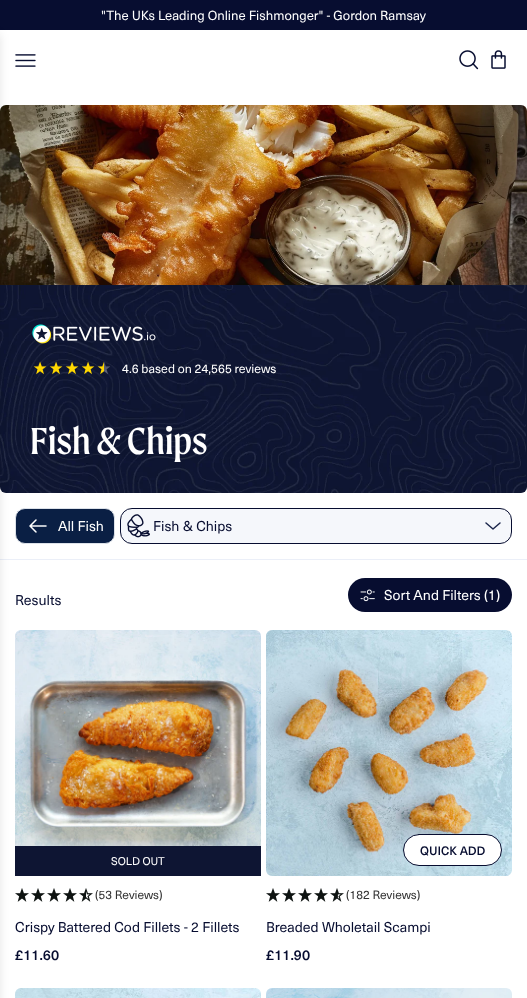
(async () => {
const canvas = document.querySelector("canvas")
canvas.width = 527
canvas.height = 998
const c = canvas.getContext("2d")
c.miterLimit = 4
c.fontKerning = "normal"
function T(s,x,y){c.fillText(s,x,y)}
function R(x,y,w,h){c.fillRect(x,y,w,h)}
function Q(x,y,w,h,r){c.beginPath();c.roundRect(x,y,w,h,r);c.fill()}
async function I(src,x,y,w,h){const img=new Image();img.src=src;await img.decode();c.drawImage(img,x,y,w,h)}
let path
c.fillStyle="#fff"
R(0,0,527,998)
c.fillStyle="#070d30"
R(0,0,527,30)
c.font="13px 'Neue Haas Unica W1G'"
c.fillStyle="#fff"
T("\"The UKs Leading Online Fishmonger\" - Gordon Ramsay",101,20)
await I("1.png",15,54,21,13)
await I("4.png",0,105,527,180)
await I("5.png",0,285,527,208)
c.fillStyle="#0a1f44"
c.beginPath()
c.roundRect(15.5,508.5,99,35,9.5)
c.fill()
c.strokeStyle="#dce1e8"
c.stroke()
c.fillStyle="#ebeff8"
R(0,559,527,1)
await I("15.png",15,630,246,216)
c.fillStyle="#0e1533"
R(15,846,246,30)
await I("16.png",15,888,14,14)
await I("20.png",15,988,246,10)
c.fillStyle="#0000001a"
c.filter="blur(5px)"
c.beginPath()
c.rect(-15,34,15,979)
c.fill()
c.filter="none"
await I("2.png",459,50,20,20)
await I("3.png",491,50,15,19)
await I("6.png",32,324,124,20)
await I("7.png",33,361,14,14)
await I("8.png",49,361,14,14)
await I("9.png",65,361,14,14)
await I("10.png",81,361,14,14)
await I("11.png",97,362,13,13)
c.font="12.25px 'Neue Haas Unica W1G'"
c.fillStyle="#fff"
T("4.6 based on 24,565 reviews",122,373)
c.font="40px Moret"
T("Fish & Chips",30,454)
await I("12.png",29,519,18,14)
c.font="14px 'Neue Haas Unica W1G'"
T("All Fish",58,531)
c.fillStyle="#f5f7fb"
c.beginPath()
c.roundRect(120.5,508.5,391,35,11.5)
c.fill()
c.strokeStyle="#070d30"
c.stroke()
await I("13.png",127,514,23,24)
c.fillStyle="#070d30"
T("Fish & Chips",153,531)
path = new Path2D("M500 523l-7 6l-7-6")
c.strokeStyle="#1c274c"
c.lineWidth=1.5
c.lineCap="round"
c.lineJoin="round"
c.stroke(path)
T("Results",15,605)
Q(348,578,164,34,17)
await I("14.png",360,589,15,13)
c.fillStyle="#fff"
T("Sort And Filters (1)",384,600)
c.font="11px 'Neue Haas Unica W1G'"
T("SOLD OUT",111,865)
await I("16.png",31,888,14,14)
await I("16.png",47,888,14,14)
await I("16.png",63,888,14,14)
await I("17.png",79,888,14,14)
c.font="12px 'Neue Haas Unica W1G'"
c.fillStyle="#333"
T("(53 Reviews)",95,899)
c.font="14px 'Neue Haas Unica W1G'"
c.fillStyle="#070d30"
T("Crispy Battered Cod Fillets - 2 Fillets",15,932)
c.font="500 14px 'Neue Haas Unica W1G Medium'"
T("£11.60",15,960)
await I("18.png",266,630,246,246)
c.fillStyle="#fff"
c.beginPath()
c.roundRect(403.5,834.5,98,31,15.5)
c.fill()
c.strokeStyle="#070d30"
c.lineWidth=1
c.lineJoin="miter"
c.stroke()
c.font="500 12px 'Neue Haas Unica W1G Medium'"
c.fillStyle="#070d30"
T("QUICK ADD",420,855)
await I("16.png",266,888,14,14)
await I("16.png",282,888,14,14)
await I("16.png",298,888,14,14)
await I("16.png",314,888,14,14)
await I("19.png",330,888,14,14)
c.font="12px 'Neue Haas Unica W1G'"
c.fillStyle="#333"
T("(182 Reviews)",346,899)
c.font="14px 'Neue Haas Unica W1G'"
c.fillStyle="#070d30"
T("Breaded Wholetail Scampi",266,932)
c.font="500 14px 'Neue Haas Unica W1G Medium'"
T("£11.90",266,960)
await I("21.png",266,988,246,10)
})()
